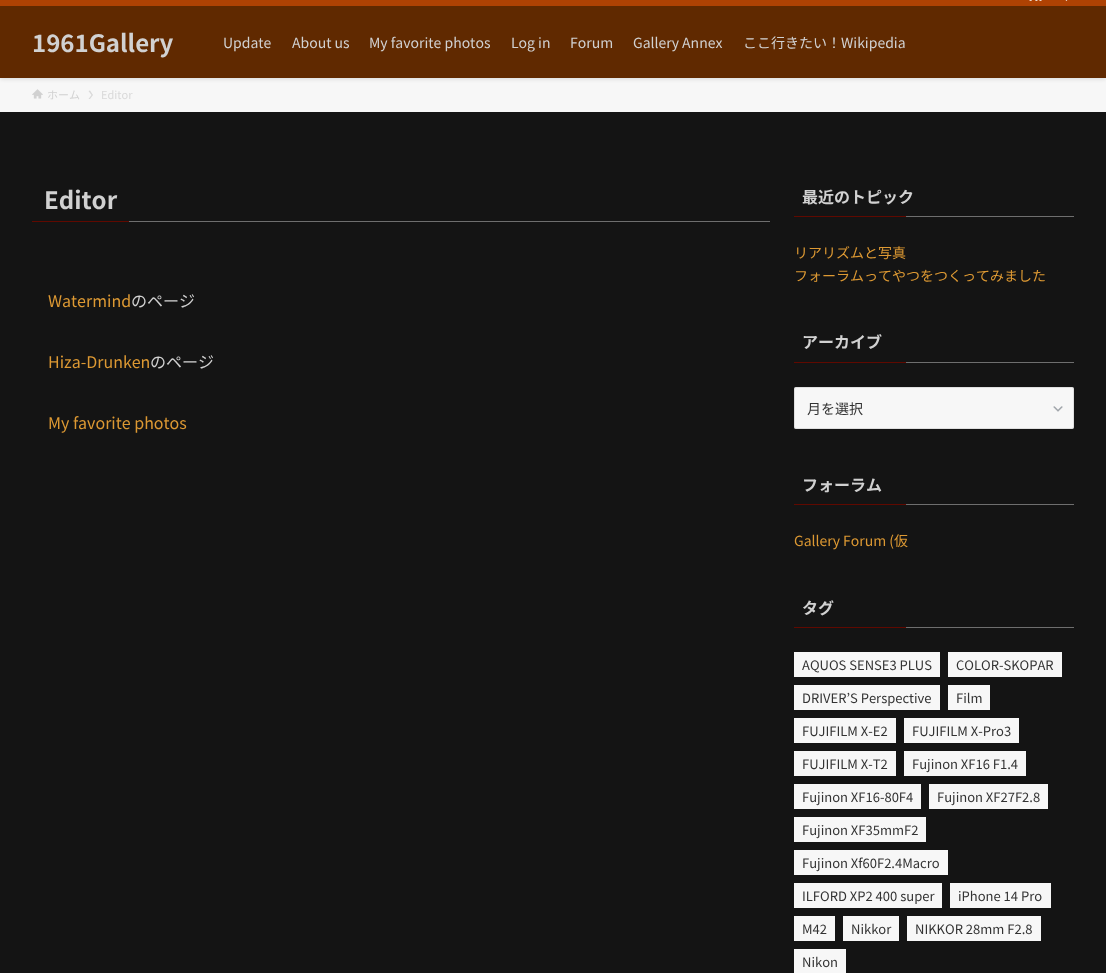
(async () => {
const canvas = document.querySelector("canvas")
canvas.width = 1106
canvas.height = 973
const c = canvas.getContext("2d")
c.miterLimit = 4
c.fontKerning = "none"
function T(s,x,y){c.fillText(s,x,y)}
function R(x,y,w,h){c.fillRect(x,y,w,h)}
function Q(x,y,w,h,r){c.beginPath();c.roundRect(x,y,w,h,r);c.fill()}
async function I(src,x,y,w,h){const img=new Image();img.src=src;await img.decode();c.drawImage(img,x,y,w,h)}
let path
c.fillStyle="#141414"
R(0,0,1106,973)
c.fillStyle="#f7f7f7"
R(0,78,1106,34)
c.fillStyle="#0000001f"
c.filter="blur(2px)"
c.beginPath()
c.rect(0,-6,1106,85)
c.fill()
c.filter="none"
c.fillStyle="#602900"
R(0,6,1106,72)
c.fillStyle="#af4203"
R(0,0,1106,6)
await I("1.png",1029,0,13,1)
await I("2.png",1065,0,3,1)
c.font="bold 24px Noto Sans JP"
c.fillStyle="#d1d1d1"
T("1961Gallery",32,52)
c.font="14px Noto Sans JP"
T("Update",223,48)
T("About us",292,48)
T("My favorite photos",369,48)
T("Log in",511,48)
T("Forum",570,48)
T("Gallery Annex",633,48)
T("ここ行きたい！Wikipedia",743,48)
await I("3.png",32,89,11,10)
c.font="11px Noto Sans JP"
T("ホーム",47,99)
c.fillStyle="#d9d9d9"
path = new Path2D("M90 90.5l-1.5 .5l3 4l-3 4h1.5l3-4z")
c.fill(path)
T("Editor",101,99)
c.fillStyle="#6e6e6e"
R(129,221,641,1)
c.fillStyle="#600900"
R(32,221,97,1)
c.font="bold 24px Noto Sans JP"
c.fillStyle="#d1d1d1"
T("Editor",44,209)
c.font="16px Noto Sans JP"
c.fillStyle="#d93"
T("Watermind",48,307)
c.fillStyle="#d1d1d1"
T("のページ",131,307)
c.fillStyle="#d93"
T("Hiza-Drunken",48,368)
c.fillStyle="#d1d1d1"
T("のページ",150,368)
c.fillStyle="#d93"
T("My favorite photos",48,429)
c.font="bold 16px Noto Sans JP"
c.fillStyle="#d1d1d1"
T("最近のトピック",802,203)
c.fillStyle="#600900"
R(794,216,112,1)
c.fillStyle="#6e6e6e"
R(906,216,168,1)
c.font="14px Noto Sans JP"
c.fillStyle="#d93"
T("リアリズムと写真",794,258)
T("フォーラムってやつをつくってみました",794,281)
c.font="bold 16px Noto Sans JP"
c.fillStyle="#d1d1d1"
T("アーカイブ",802,348)
c.fillStyle="#600900"
R(794,362,112,1)
c.fillStyle="#6e6e6e"
R(906,362,168,1)
c.fillStyle="#f7f7f7"
Q(794,387,280,42,2)
await I("4.png",1053,406,10,6)
c.beginPath()
c.roundRect(794.5,387.5,279,41,1.5)
c.strokeStyle="#c7c7c780"
c.stroke()
c.font="14px Noto Sans JP"
c.fillStyle="#333"
T("月を選択",807,414)
c.font="bold 16px Noto Sans JP"
c.fillStyle="#d1d1d1"
T("フォーラム",802,491)
c.fillStyle="#600900"
R(794,504,112,1)
c.fillStyle="#6e6e6e"
R(906,504,168,1)
c.font="14px Noto Sans JP"
c.fillStyle="#d93"
T("Gallery Forum (仮",794,546)
c.font="bold 16px Noto Sans JP"
c.fillStyle="#d1d1d1"
T("タグ",802,614)
c.fillStyle="#600900"
R(794,627,112,1)
c.fillStyle="#6e6e6e"
R(906,627,168,1)
c.fillStyle="#f7f7f7"
R(794,652,146,25)
c.font="13px Noto Sans JP"
c.fillStyle="#333"
T("AQUOS SENSE3 PLUS",802,670)
c.fillStyle="#f7f7f7"
R(948,652,114,25)
c.fillStyle="#333"
T("COLOR-SKOPAR",956,670)
c.fillStyle="#f7f7f7"
R(794,685,146,25)
c.fillStyle="#333"
T("DRIVER’S Perspective",802,703)
c.fillStyle="#f7f7f7"
R(948,685,42,25)
c.fillStyle="#333"
T("Film",956,703)
c.fillStyle="#f7f7f7"
R(794,718,102,25)
c.fillStyle="#333"
T("FUJIFILM X-E2",802,736)
c.fillStyle="#f7f7f7"
R(904,718,115,25)
c.fillStyle="#333"
T("FUJIFILM X-Pro3",912,736)
c.fillStyle="#f7f7f7"
R(794,751,102,25)
c.fillStyle="#333"
T("FUJIFILM X-T2",802,769)
c.fillStyle="#f7f7f7"
R(904,751,122,25)
c.fillStyle="#333"
T("Fujinon XF16 F1.4",912,769)
c.fillStyle="#f7f7f7"
R(794,784,127,25)
c.fillStyle="#333"
T("Fujinon XF16-80F4",802,802)
c.fillStyle="#f7f7f7"
R(929,784,119,25)
c.fillStyle="#333"
T("Fujinon XF27F2.8",937,802)
c.fillStyle="#f7f7f7"
R(794,817,132,25)
c.fillStyle="#333"
T("Fujinon XF35mmF2",802,835)
c.fillStyle="#f7f7f7"
R(794,850,154,25)
c.fillStyle="#333"
T("Fujinon Xf60F2.4Macro",802,868)
c.fillStyle="#f7f7f7"
R(794,883,148,25)
c.fillStyle="#333"
T("ILFORD XP2 400 super",802,901)
c.fillStyle="#f7f7f7"
R(950,883,101,25)
c.fillStyle="#333"
T("iPhone 14 Pro",958,901)
c.fillStyle="#f7f7f7"
R(794,916,41,25)
c.fillStyle="#333"
T("M42",802,934)
c.fillStyle="#f7f7f7"
R(843,916,56,25)
c.fillStyle="#333"
T("Nikkor",851,934)
c.fillStyle="#f7f7f7"
R(907,916,134,25)
c.fillStyle="#333"
T("NIKKOR 28mm F2.8",915,934)
c.fillStyle="#f7f7f7"
R(794,949,52,24)
c.fillStyle="#333"
T("Nikon",802,967)
})()
